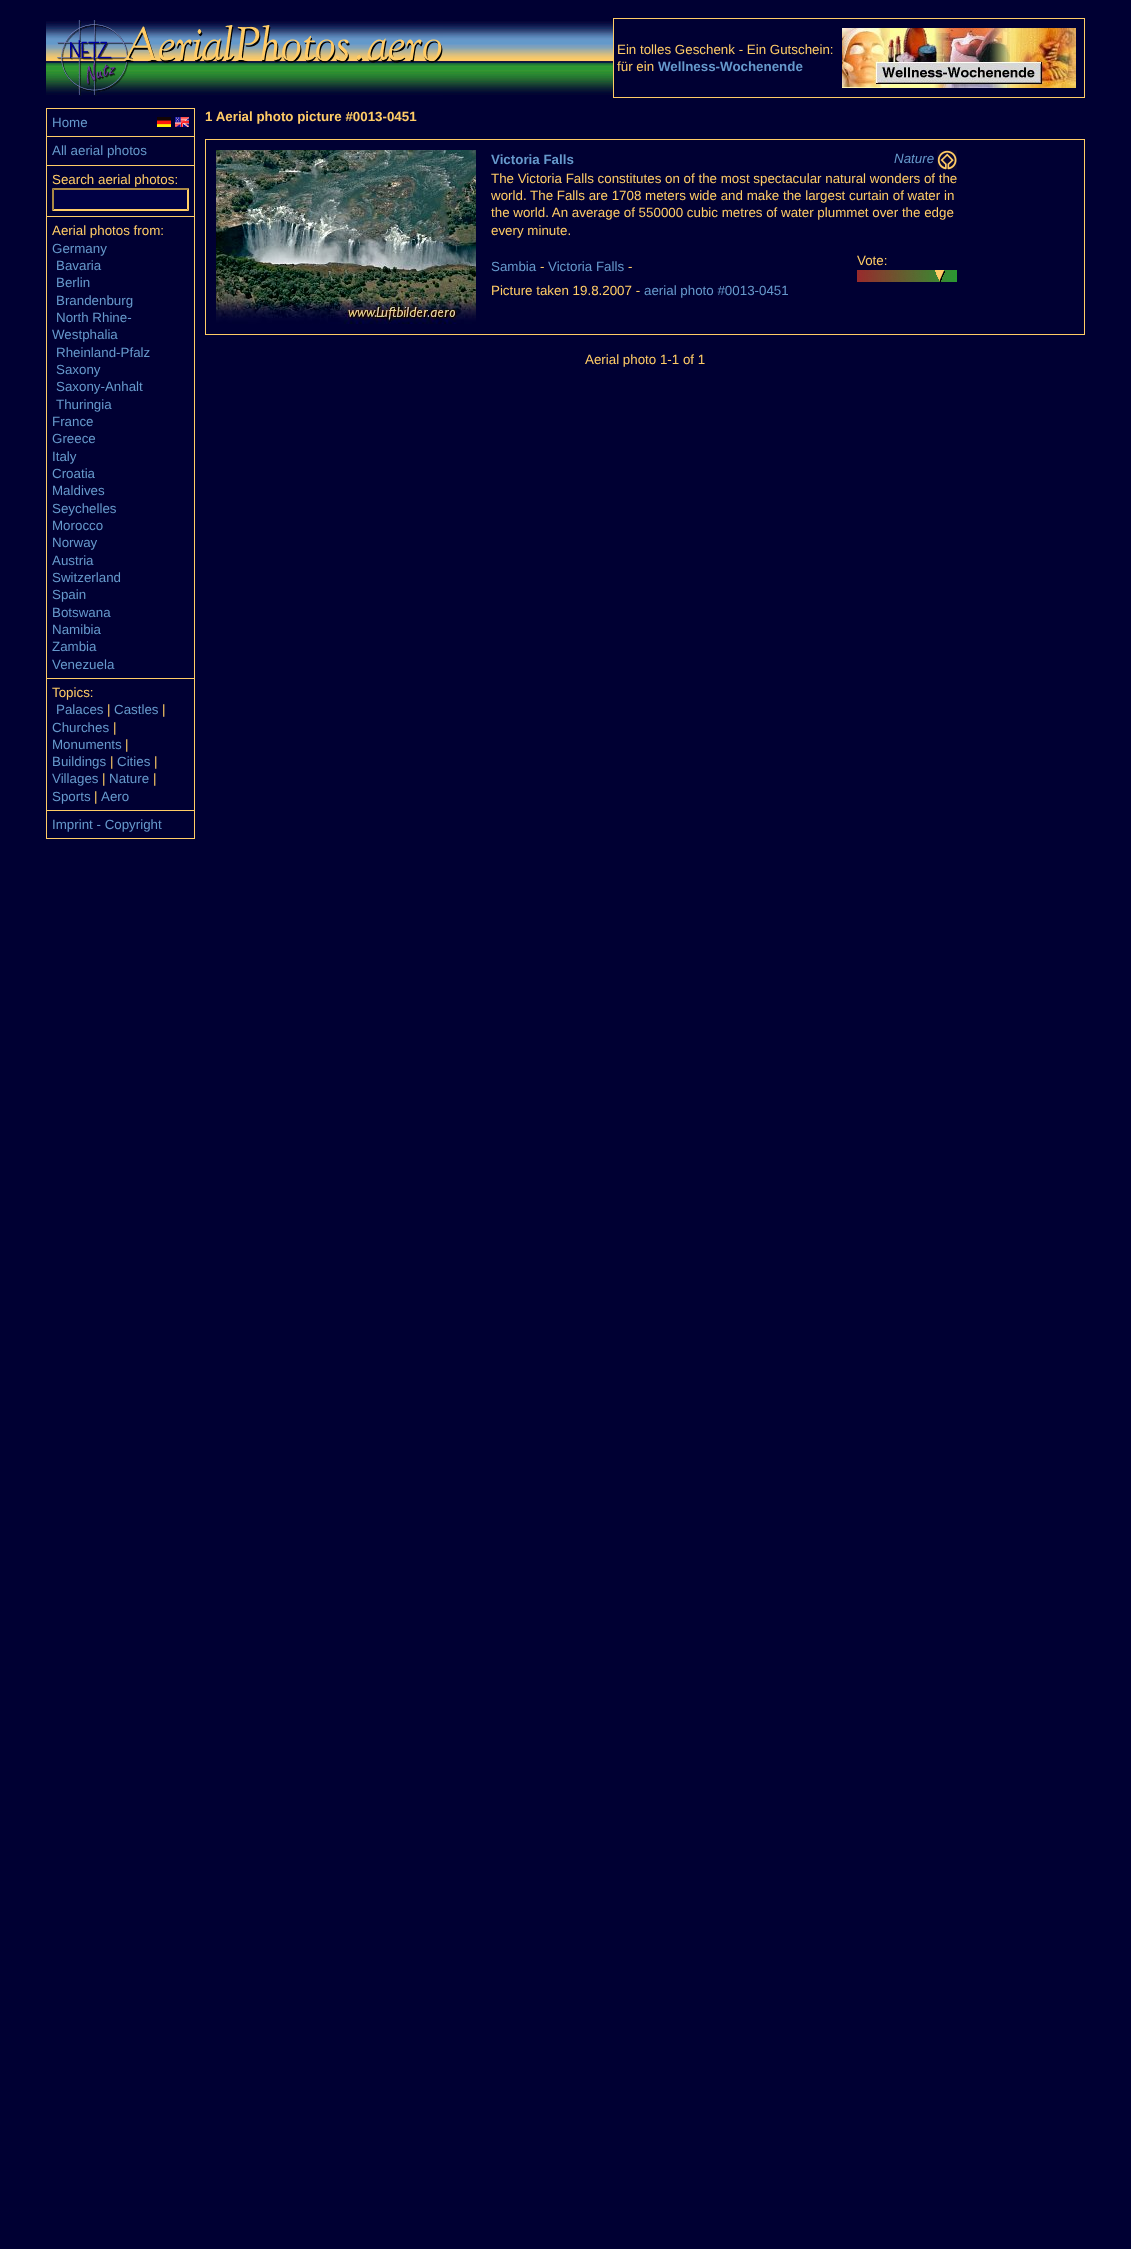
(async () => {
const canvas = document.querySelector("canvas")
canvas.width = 1131
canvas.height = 2249
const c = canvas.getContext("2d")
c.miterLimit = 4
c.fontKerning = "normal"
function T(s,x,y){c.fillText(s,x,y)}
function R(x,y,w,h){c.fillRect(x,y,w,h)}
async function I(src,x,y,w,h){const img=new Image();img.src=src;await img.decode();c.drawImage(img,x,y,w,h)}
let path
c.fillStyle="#003"
R(0,0,1131,2249)
await I("1.png",46,21,567,74)
await I("2.png",57,20,386,76)
c.fillStyle="#fc6"
R(613,18,472,1)
R(1084,18,1,80)
R(613,97,472,1)
R(613,18,1,80)
c.font="13.35px Liberation Sans"
T("Ein tolles Geschenk - Ein Gutschein:",617,54)
T("für ein",617,71)
c.font="bold 13.35px Liberation Sans"
c.fillStyle="#69c"
T("Wellness-Wochenende",658,71)
await I("3.png",842,28,234,60)
c.fillStyle="#fc6"
R(46,108,149,1)
R(194,108,1,731)
R(46,838,149,1)
R(46,108,1,731)
c.font="13.35px Liberation Sans"
c.fillStyle="#69c"
T("Home",52,127)
await I("4.png",157,117,14,10)
await I("5.png",175,117,14,10)
c.fillStyle="#fc6"
R(46,136,149,1)
c.fillStyle="#69c"
T("All aerial photos",52,155)
c.fillStyle="#fc6"
R(46,165,149,1)
T("Search aerial photos:",52,184)
c.fillStyle="#004"
R(52,188,137,23)
c.fillStyle="#a84"
path = new Path2D("M52 188h137l-2 2h-133z")
c.fill(path)
c.fillStyle="#fc6"
path = new Path2D("M189 188v23l-2-2v-19z")
c.fill(path)
path = new Path2D("M189 211h-137l2-2h133z")
c.fill(path)
c.fillStyle="#a84"
path = new Path2D("M52 211v-23l2 2v19z")
c.fill(path)
c.fillStyle="#fc6"
R(46,216,149,1)
T("Aerial photos from:",52,235)
c.fillStyle="#69c"
T("Germany",52,253)
T("Bavaria",56,270)
T("Berlin",56,287)
T("Brandenburg",56,305)
T("North Rhine-",56,322)
T("Westphalia",52,339)
T("Rheinland-Pfalz",56,357)
T("Saxony",56,374)
T("Saxony-Anhalt",56,391)
T("Thuringia",56,409)
T("France",52,426)
T("Greece",52,443)
T("Italy",52,461)
T("Croatia",52,478)
T("Maldives",52,495)
T("Seychelles",52,513)
T("Morocco",52,530)
T("Norway",52,547)
T("Austria",52,565)
T("Switzerland",52,582)
T("Spain",52,599)
T("Botswana",52,617)
T("Namibia",52,634)
T("Zambia",52,651)
T("Venezuela",52,669)
c.fillStyle="#fc6"
R(46,678,149,1)
T("Topics:",52,697)
c.fillStyle="#69c"
T("Palaces",56,714)
c.fillStyle="#fc6"
T("|",107,714)
c.fillStyle="#69c"
T("Castles",114,714)
c.fillStyle="#fc6"
T("|",162,714)
c.fillStyle="#69c"
T("Churches",52,732)
c.fillStyle="#fc6"
T("|",113,732)
c.fillStyle="#69c"
T("Monuments",52,749)
c.fillStyle="#fc6"
T("|",125,749)
c.fillStyle="#69c"
T("Buildings",52,766)
c.fillStyle="#fc6"
T("|",110,766)
c.fillStyle="#69c"
T("Cities",117,766)
c.fillStyle="#fc6"
T("|",154,766)
c.fillStyle="#69c"
T("Villages",52,783)
c.fillStyle="#fc6"
T("|",102,783)
c.fillStyle="#69c"
T("Nature",109,783)
c.fillStyle="#fc6"
T("|",153,783)
c.fillStyle="#69c"
T("Sports",52,801)
c.fillStyle="#fc6"
T("|",94,801)
c.fillStyle="#69c"
T("Aero",101,801)
c.fillStyle="#fc6"
R(46,810,149,1)
c.fillStyle="#69c"
T("Imprint - Copyright",52,829)
c.font="bold 13.35px Liberation Sans"
c.fillStyle="#fc6"
T("1 Aerial photo picture #0013-0451",205,121)
R(205,139,880,1)
R(1084,139,1,196)
R(205,334,880,1)
R(205,139,1,196)
await I("6.png",216,150,260,174)
c.fillStyle="#69c"
T("Victoria Falls",491,164)
c.font="italic 13.35px Liberation Sans"
T("Nature",894,163)
await I("7.png",937,150,20,20)
c.font="13.35px Liberation Sans"
c.fillStyle="#fc6"
T("The Victoria Falls constitutes on of the most spectacular natural wonders of the",491,183)
T("world. The Falls are 1708 meters wide and make the largest curtain of water in",491,200)
T("the world. An average of 550000 cubic metres of water plummet over the edge",491,217)
T("every minute.",491,235)
c.fillStyle="#69c"
T("Sambia",491,271)
c.fillStyle="#fc6"
T("-",540,271)
c.fillStyle="#69c"
T("Victoria Falls",548,271)
c.fillStyle="#fc6"
T("-",628,271)
T("Vote:",857,265)
await I("8.png",857,270,100,12)
await I("9.png",935,270,10,12)
T("Picture taken 19.8.2007 -",491,295)
c.fillStyle="#69c"
T("aerial photo #0013-0451",644,295)
c.fillStyle="#fc6"
T("Aerial photo 1-1 of 1",585,364)
})()
